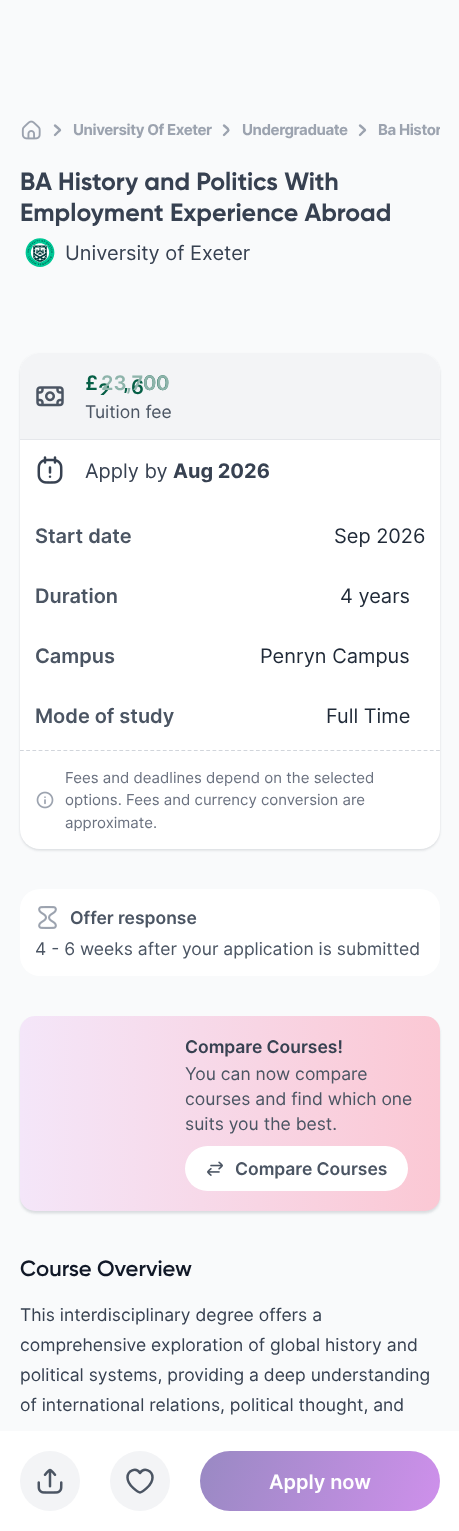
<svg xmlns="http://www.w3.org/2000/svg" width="459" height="1531">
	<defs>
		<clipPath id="clip1"><rect x="20" y="115" width="420" height="30" /></clipPath>
		<clipPath id="clip2"><rect x="99" y="370" width="12" height="25" /></clipPath>
		<clipPath id="clip3"><rect x="124" y="368" width="7" height="25" /></clipPath>
		<linearGradient id="g1" gradientUnits="userSpaceOnUse" x1="20" y1="1114" x2="440" y2="1114"><stop offset="0" stop-color="#F4E6F9" /><stop offset="1" stop-color="#FBC8D4" /></linearGradient>
		<linearGradient id="g2" gradientUnits="userSpaceOnUse" x1="203" y1="1443" x2="437" y2="1519"><stop offset="0" stop-color="#9989C3" /><stop offset="1" stop-color="#CE90EB" /></linearGradient>
	</defs>
	<rect width="100%" height="100%" fill="#F9FAFB" />
	<image x="21" y="120" width="20" height="20" href="assets/img1.png" />
	<path d="M55 125.5L58.5 128.5C60.5 130.5 60.5 130 58.5 131.5L55 135" fill="none" stroke="#9CA3AF" stroke-width="2.4" stroke-linecap="round" stroke-linejoin="round" />
	<text x="73" y="135" font-family="Inter" font-size="15" font-weight="700" letter-spacing="-0.4" fill="#9CA3AF">University Of Exeter</text>
	<path d="M224 125.5L227.5 128.5C229 130.5 229 130 227.5 131.5L224 135" fill="none" stroke="#9CA3AF" stroke-width="2.4" stroke-linecap="round" stroke-linejoin="round" />
	<text x="242" y="135" font-family="Inter" font-size="15" font-weight="700" letter-spacing="-0.4" fill="#9CA3AF">Undergraduate</text>
	<path d="M360 125.5L363.5 128.5C365.5 130.5 365.5 130 363.5 131.5L360 135" fill="none" stroke="#9CA3AF" stroke-width="2.4" stroke-linecap="round" stroke-linejoin="round" />
	<g clip-path="url(#clip1)">
		<text x="378" y="135" font-family="Inter" font-size="15" font-weight="700" letter-spacing="-0.4" fill="#9CA3AF">Ba Histor</text>
	</g>
	<g font-family="Gilroy" font-size="25" font-weight="700" fill="#374151">
		<text x="20" y="190">BA History and Politics With</text>
		<text x="20" y="221">Employment Experience Abroad</text>
	</g>
	<image x="25" y="238" width="30" height="29" href="assets/img2.png" />
	<text x="65" y="260" font-family="Inter" font-size="20" fill="#374151">University of Exeter</text>
	<rect x="20" y="355" width="420" height="496" rx="20" fill="#4B5563" fill-opacity="0.08" filter="blur(1px)" />
	<rect x="20" y="354" width="420" height="496" rx="20" fill="#4B5563" fill-opacity="0.1" filter="blur(1px)" />
	<rect x="20" y="353" width="420" height="496" rx="20" fill="#FFFFFF" />
	<path d="M40 353H420C431 353 440 362 440 373V439H20V373C20 362 29 353 40 353Z" fill="#F3F4F6" />
	<rect x="20" y="439" width="420" height="1" fill="#E5E7EB" />
	<image x="36" y="386" width="28" height="21" href="assets/img3.png" />
	<text x="85" y="390" font-family="Inter" font-size="20" font-weight="600" fill="#065F46">£</text>
	<g clip-path="url(#clip2)">
		<text x="98" y="398" font-family="Inter" font-size="20" font-weight="600" fill="#065F46">2</text>
	</g>
	<g clip-path="url(#clip3)">
		<text x="123" y="390" font-family="Inter" font-size="20" font-weight="600" fill="#065F46">,</text>
	</g>
	<g font-family="Inter" font-size="20" font-weight="600" fill="#065F46">
		<text x="131" y="394">6</text>
		<text x="143" y="390">0</text>
		<text x="156" y="390">0</text>
	</g>
	<text x="101" y="390" font-family="Inter" font-size="20" font-weight="600" fill="#8EB4AB">23,700</text>
	<text x="85" y="418" font-family="Inter" font-size="17.5" fill="#4B5563">Tuition fee</text>
	<image x="37" y="456" width="26" height="28" href="assets/img4.png" />
	<text x="85" y="478" font-family="Inter" font-size="20" fill="#374151">Apply by</text>
	<text x="173" y="478" font-family="Inter" font-size="20" font-weight="700" fill="#374151">Aug 2026</text>
	<text x="35" y="543" font-family="Inter" font-size="20" font-weight="600" fill="#4B5563">Start date</text>
	<text x="334" y="543" font-family="Inter" font-size="20" fill="#1F2937">Sep 2026</text>
	<text x="35" y="603" font-family="Inter" font-size="20" font-weight="600" fill="#4B5563">Duration</text>
	<text x="340" y="603" font-family="Inter" font-size="20" fill="#1F2937">4 years</text>
	<text x="35" y="663" font-family="Inter" font-size="20" font-weight="600" fill="#4B5563">Campus</text>
	<text x="260" y="663" font-family="Inter" font-size="20" fill="#1F2937">Penryn Campus</text>
	<text x="35" y="723" font-family="Inter" font-size="20" font-weight="600" fill="#4B5563">Mode of study</text>
	<text x="326" y="723" font-family="Inter" font-size="20" fill="#1F2937">Full Time</text>
	<path d="M20 750.5H440" fill="none" stroke="#D1D5DB" stroke-width="1.2" stroke-dasharray="3.75 2.46" />
	<image x="36" y="791" width="18" height="18" href="assets/img5.png" />
	<g font-family="Inter" font-size="15" fill="#6B7280">
		<text x="65" y="783">Fees and deadlines depend on the selected</text>
		<text x="65" y="805">options. Fees and currency conversion are</text>
		<text x="65" y="828">approximate.</text>
	</g>
	<rect x="20" y="889" width="420" height="87" rx="20" fill="#FFFFFF" />
	<image x="38" y="906" width="19" height="23" href="assets/img6.png" />
	<text x="70" y="924" font-family="Inter" font-size="17.5" font-weight="600" fill="#4B5563">Offer response</text>
	<text x="35" y="955" font-family="Inter" font-size="17.5" fill="#4B5563">4 - 6 weeks after your application is submitted</text>
	<rect x="20" y="1018" width="420" height="195" rx="15" fill="#4B5563" fill-opacity="0.1" filter="blur(1px)" />
	<rect x="20" y="1019" width="420" height="195" rx="15" fill="#4B5563" fill-opacity="0.08" filter="blur(1px)" />
	<rect x="20" y="1016" width="420" height="195" rx="15" fill="url(#g1)" />
	<text x="185" y="1053" font-family="Inter" font-size="17.5" font-weight="600" fill="#374151">Compare Courses!</text>
	<g font-family="Inter" font-size="17.5" fill="#4B5563">
		<text x="185" y="1080">You can now compare</text>
		<text x="185" y="1105">courses and find which one</text>
		<text x="185" y="1130">suits you the best.</text>
	</g>
	<rect x="185" y="1146" width="223" height="45" rx="22.5" fill="#FFFFFF" />
	<image x="207" y="1161" width="16" height="15" href="assets/img7.png" />
	<text x="235" y="1175" font-family="Inter" font-size="17.5" font-weight="600" fill="#4B5563">Compare Courses</text>
	<text x="20" y="1276" font-family="Gilroy" font-size="22" font-weight="600" fill="#111827">Course Overview</text>
	<g font-family="Inter" font-size="17.5" fill="#374151">
		<text x="20" y="1321">This interdisciplinary degree offers a</text>
		<text x="20" y="1351">comprehensive exploration of global history and</text>
		<text x="20" y="1381">political systems, providing a deep understanding</text>
		<text x="20" y="1411">of international relations, political thought, and</text>
	</g>
	<rect x="0" y="1431" width="459" height="100" fill="#FFFFFF" />
	<circle cx="50" cy="1481" r="30" fill="#F3F4F6" />
	<image x="37" y="1468" width="26" height="26" href="assets/img8.png" />
	<circle cx="140" cy="1481" r="30" fill="#F3F4F6" />
	<path d="M140 1492.5C141 1492.5 152.5 1486 152.5 1477.5C152.5 1470.5 144 1467 140 1473C136 1467 127.5 1470.5 127.5 1477.5C127.5 1486 139 1492.5 140 1492.5Z" fill="none" stroke="#4B5563" stroke-width="2.5" stroke-linecap="round" stroke-linejoin="round" />
	<rect x="200" y="1451" width="240" height="60" rx="30" fill="url(#g2)" />
	<text x="269" y="1489" font-family="Inter" font-size="20" font-weight="600" fill="#FFFFFF">Apply now</text>
</svg>
